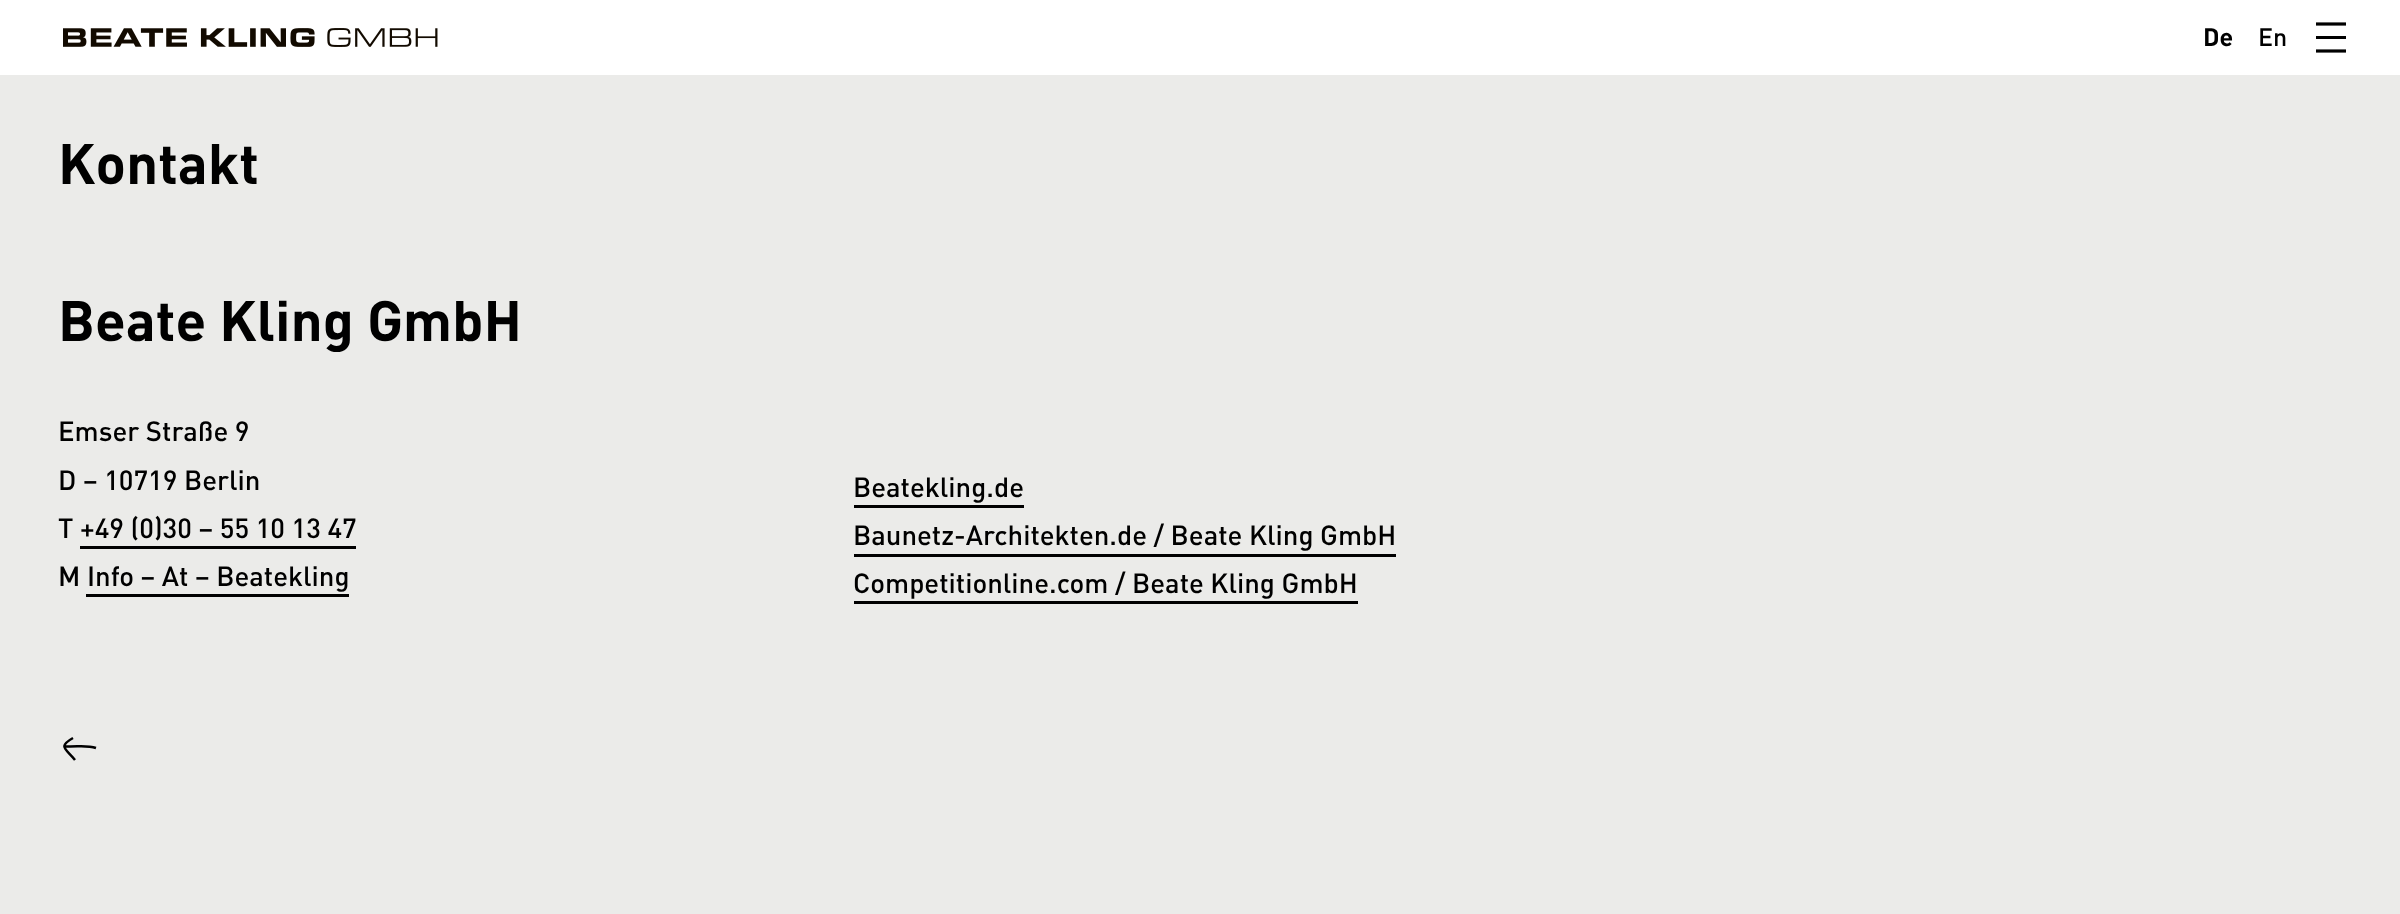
<svg xmlns="http://www.w3.org/2000/svg" width="2400" height="914">
	<rect width="100%" height="100%" fill="#EBEBE9" />
	<rect x="0" y="0" width="2400" height="75" fill="#FFFFFF" />
	<image x="63" y="28" width="375" height="19" href="assets/img1.png" />
	<text x="2203" y="46" font-family="DIN" font-size="25" font-weight="700" fill="#000000">De</text>
	<text x="2258" y="46" font-family="DIN" font-size="25" font-weight="500" fill="#000000">En</text>
	<path d="M2316 24H2346" fill="none" stroke="#000000" stroke-width="3.2" />
	<rect x="2316" y="36" width="30" height="3" fill="#000000" />
	<path d="M2316 51H2346" fill="none" stroke="#000000" stroke-width="3.2" />
	<g font-family="DIN" font-size="56.25" font-weight="700" fill="#000000">
		<text x="58" y="184">Kontakt</text>
		<text x="58" y="341">Beate Kling GmbH</text>
	</g>
	<g font-family="DIN" font-size="27.5" font-weight="500" fill="#000000">
		<text x="58" y="441">Emser Straße 9</text>
		<text x="58" y="490">D – 10719 Berlin</text>
		<text x="58" y="538">T +49 (0)30 – 55 10 13 47</text>
	</g>
	<rect x="80" y="546" width="276" height="3" fill="#000000" />
	<text x="58" y="586" font-family="DIN" font-size="27.5" font-weight="500" fill="#000000">M Info – At – Beatekling</text>
	<rect x="86" y="594" width="263" height="3" fill="#000000" />
	<text x="853" y="497" font-family="DIN" font-size="27.5" font-weight="500" fill="#000000">Beatekling.de</text>
	<rect x="854" y="505" width="170" height="3" fill="#000000" />
	<text x="853" y="545" font-family="DIN" font-size="27.5" font-weight="500" fill="#000000">Baunetz-Architekten.de / Beate Kling GmbH</text>
	<rect x="854" y="554" width="542" height="3" fill="#000000" />
	<text x="853" y="593" font-family="DIN" font-size="27.5" font-weight="500" fill="#000000">Competitionline.com / Beate Kling GmbH</text>
	<rect x="854" y="601" width="504" height="3" fill="#000000" />
	<path d="M96 748C87.5 745 83 746.5 64 746.5M73 738C57 747 66.5 749 75 760" fill="none" stroke="#000000" stroke-width="2.5" />
</svg>
